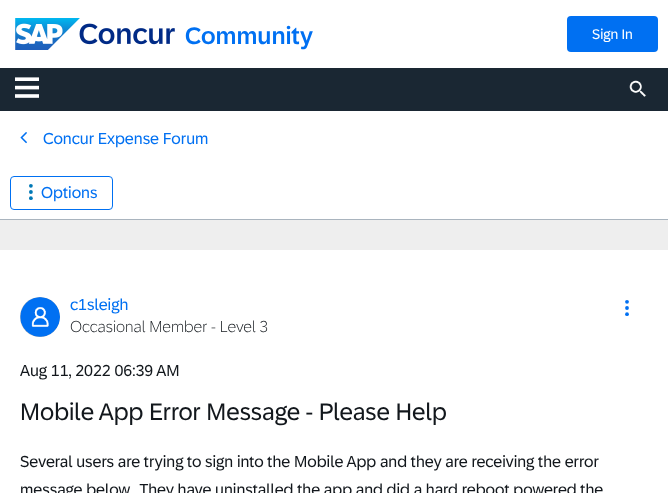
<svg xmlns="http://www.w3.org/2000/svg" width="668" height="493">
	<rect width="100%" height="100%" fill="#EEEEEE" />
	<rect x="0" y="0" width="668" height="68" fill="#FFFFFF" />
	<image x="15" y="18" width="160" height="32" href="assets/img1.png" />
	<text x="185" y="44" font-family="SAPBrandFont" font-size="24" font-weight="500" fill="#0070F2">Community</text>
	<rect x="567" y="16" width="91" height="36" rx="4" fill="#0070F2" />
	<text x="592" y="39" font-family="SAPBrandFont" font-size="14" fill="#FFFFFF">Sign In</text>
	<rect x="0" y="68" width="668" height="43" fill="#1A2733" />
	<image x="15" y="77" width="24" height="21" href="assets/img2.png" />
	<image x="629" y="80" width="18" height="17" href="assets/img3.png" />
	<rect x="0" y="111" width="668" height="108" fill="#FFFFFF" />
	<rect x="0" y="219" width="668" height="1" fill="#A9B4BE" />
	<image x="20" y="132" width="7" height="12" href="assets/img4.png" />
	<text x="43" y="144" font-family="SAPBrandFont" font-size="16" fill="#0070F2">Concur Expense Forum</text>
	<rect x="10.5" y="176.5" width="102" height="33" rx="3.5" fill="none" stroke="#0070F2" />
	<circle cx="30.9" cy="185.8" r="1.9" fill="#0078B6" />
	<circle cx="30.9" cy="192" r="1.9" fill="#0078B6" />
	<circle cx="30.9" cy="198.2" r="1.9" fill="#0078B6" />
	<text x="41" y="198" font-family="SAPBrandFont" font-size="16" fill="#0070F2">Options</text>
	<rect x="0" y="250" width="668" height="243" fill="#FFFFFF" />
	<rect x="20" y="297" width="40" height="40" rx="20" fill="#A9B4BE" filter="blur(0.5px)" />
	<image x="20" y="297" width="40" height="40" href="assets/img5.png" />
	<text x="70" y="310" font-family="SAPBrandFont" font-size="16" fill="#0070F2">c1sleigh</text>
	<text x="70" y="332" font-family="SAPBrandFont" font-size="16" font-weight="300" fill="#12171C">Occasional Member - Level 3</text>
	<circle cx="627" cy="301.8" r="1.9" fill="#0070F2" />
	<circle cx="627" cy="308" r="1.9" fill="#0070F2" />
	<circle cx="627" cy="314.2" r="1.9" fill="#0070F2" />
	<text x="20" y="376" font-family="SAPBrandFont" font-size="16" fill="#12171C">Aug 11, 2022 06:39 AM</text>
	<text x="20" y="420" font-family="SAPBrandFont" font-size="24" fill="#12171C">Mobile App Error Message - Please Help</text>
	<g font-family="SAPBrandFont" font-size="16" fill="#12171C">
		<text x="20" y="467">Several users are trying to sign into the Mobile App and they are receiving the error</text>
		<text x="20" y="495" xml:space="preserve">message below.  They have uninstalled the app and did a hard reboot powered the</text>
	</g>
</svg>
